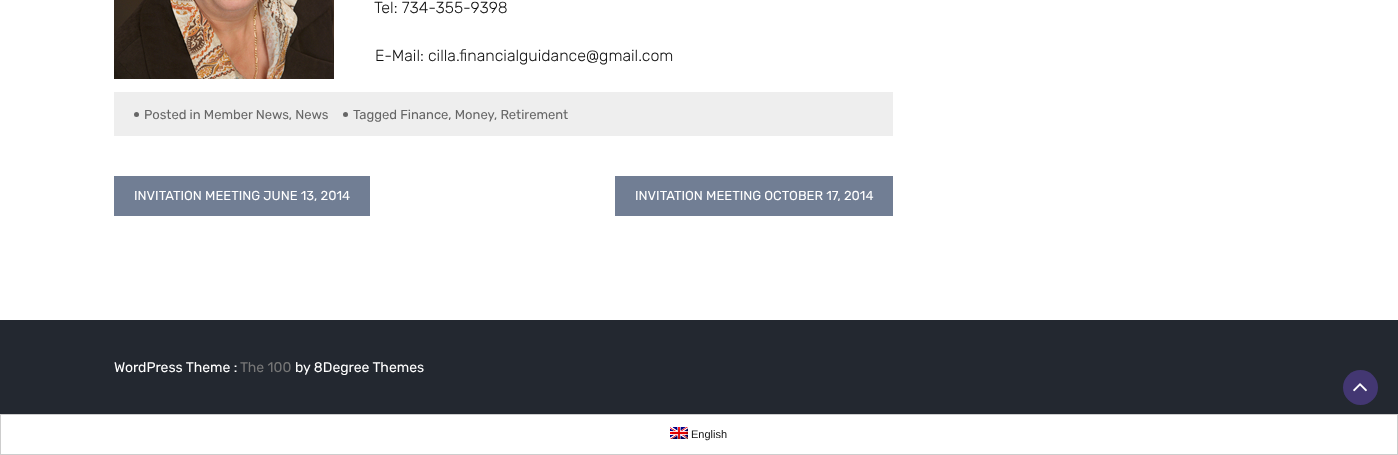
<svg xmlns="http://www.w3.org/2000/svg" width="1398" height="455">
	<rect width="100%" height="100%" fill="#FFFFFF" />
	<image x="114" y="0" width="220" height="79" href="assets/img1.png" />
	<g font-family="Rubik" font-size="16" font-weight="300" fill="#111111">
		<text x="374" y="13">Tel: 734-355-9398</text>
		<text x="375" y="61">E-Mail: cilla.financialguidance@gmail.com</text>
	</g>
	<rect x="114" y="92" width="779" height="44" fill="#EEEEEE" />
	<circle cx="136.5" cy="114.5" r="2.5" fill="#666666" />
	<text x="144" y="119" font-family="Rubik" font-size="13" fill="#666666">Posted in Member News, News</text>
	<circle cx="345.5" cy="114.5" r="2.5" fill="#666666" />
	<g font-family="Rubik" font-size="13" fill="#666666">
		<text x="353" y="119">Tagged Finance, Money</text>
		<text x="494" y="119">, Retirement</text>
	</g>
	<rect x="114" y="176" width="256" height="40" fill="#717E94" />
	<text x="134" y="200" font-family="Rubik" font-size="13" fill="#FFFFFF">INVITATION MEETING JUNE 13, 2014</text>
	<rect x="615" y="176" width="278" height="40" fill="#717E94" />
	<text x="635" y="200" font-family="Rubik" font-size="13" fill="#FFFFFF">INVITATION MEETING OCTOBER 17, 2014</text>
	<rect x="0" y="320" width="1398" height="94" fill="#232830" />
	<text x="114" y="372" font-family="Rubik" font-size="14" fill="#FFFFFF">WordPress Theme :</text>
	<text x="240" y="372" font-family="Rubik" font-size="14" fill="#777777">The 100</text>
	<text x="295" y="372" font-family="Rubik" font-size="14" fill="#FFFFFF">by 8Degree Themes</text>
	<circle cx="1360.5" cy="387.5" r="17.5" fill="#433772" />
	<image x="1353" y="383" width="14" height="9" href="assets/img2.png" />
	<rect x="0.5" y="414.5" width="1397" height="40" fill="none" stroke="#CDCDCD" />
	<image x="670" y="427" width="18" height="12" href="assets/img3.png" />
	<text x="691" y="438" font-family="Liberation Sans" font-size="11" fill="#111111">English</text>
</svg>
